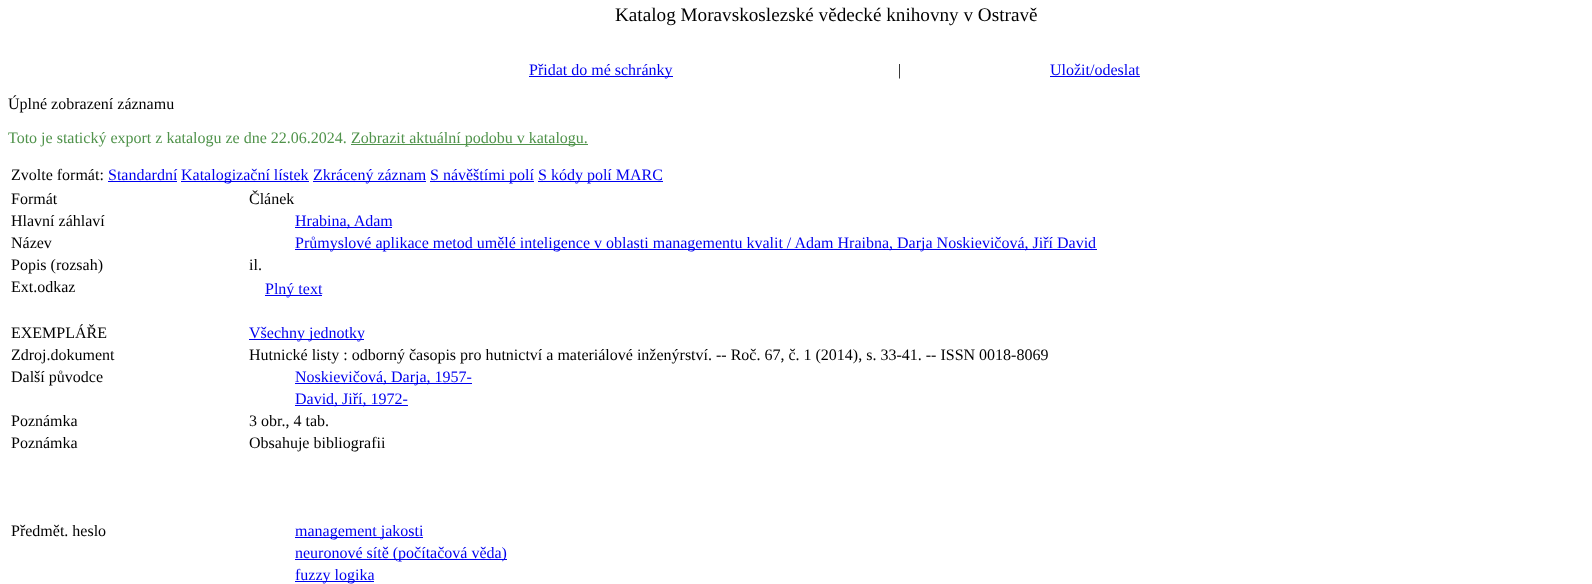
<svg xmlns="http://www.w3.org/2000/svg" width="1592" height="584">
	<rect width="100%" height="100%" fill="#FFFFFF" />
	<text x="615" y="21" font-family="Liberation Serif" font-size="19.2" fill="#000000">Katalog Moravskoslezské vědecké knihovny v Ostravě</text>
	<rect x="529" y="76" width="144" height="1" fill="#0000EE" />
	<text x="529" y="75" font-family="Liberation Serif" font-size="16" fill="#0000EE">Přidat do mé schránky</text>
	<text x="898" y="75" font-family="Liberation Serif" font-size="16" fill="#000000">|</text>
	<text x="1050" y="75" font-family="Liberation Serif" font-size="16" fill="#0000EE">Uložit/odeslat</text>
	<rect x="1050" y="76" width="90" height="1" fill="#0000EE" />
	<text x="8" y="109" font-family="Liberation Serif" font-size="16" fill="#000000">Úplné zobrazení záznamu</text>
	<text x="8" y="143" font-family="Liberation Serif" font-size="16" fill="#50934B">Toto je statický export z katalogu ze dne 22.06.2024.</text>
	<rect x="351" y="144" width="237" height="1" fill="#50934B" />
	<text x="351" y="143" font-family="Liberation Serif" font-size="16" fill="#50934B">Zobrazit aktuální podobu v katalogu.</text>
	<text x="11" y="180" font-family="Liberation Serif" font-size="16" fill="#000000">Zvolte formát:</text>
	<text x="108" y="180" font-family="Liberation Serif" font-size="16" fill="#0000EE">Standardní</text>
	<rect x="108" y="181" width="69" height="1" fill="#0000EE" />
	<rect x="181" y="181" width="128" height="1" fill="#0000EE" />
	<text x="181" y="180" font-family="Liberation Serif" font-size="16" fill="#0000EE">Katalogizační lístek</text>
	<rect x="313" y="181" width="113" height="1" fill="#0000EE" />
	<text x="313" y="180" font-family="Liberation Serif" font-size="16" fill="#0000EE">Zkrácený záznam</text>
	<rect x="430" y="181" width="104" height="1" fill="#0000EE" />
	<text x="430" y="180" font-family="Liberation Serif" font-size="16" fill="#0000EE">S návěštími polí</text>
	<rect x="538" y="181" width="125" height="1" fill="#0000EE" />
	<text x="538" y="180" font-family="Liberation Serif" font-size="16" fill="#0000EE">S kódy polí MARC</text>
	<g font-family="Liberation Serif" font-size="16" fill="#000000">
		<text x="11" y="204">Formát</text>
		<text x="249" y="204">Článek</text>
		<text x="11" y="226">Hlavní záhlaví</text>
	</g>
	<rect x="295" y="227" width="97" height="1" fill="#0000EE" />
	<text x="295" y="226" font-family="Liberation Serif" font-size="16" fill="#0000EE">Hrabina, Adam</text>
	<text x="11" y="248" font-family="Liberation Serif" font-size="16" fill="#000000">Název</text>
	<rect x="295" y="249" width="802" height="1" fill="#0000EE" />
	<text x="295" y="248" font-family="Liberation Serif" font-size="16" fill="#0000EE">Průmyslové aplikace metod umělé inteligence v oblasti managementu kvalit / Adam Hraibna, Darja Noskievičová, Jiří David</text>
	<g font-family="Liberation Serif" font-size="16" fill="#000000">
		<text x="11" y="270">Popis (rozsah)</text>
		<text x="249" y="270">il.</text>
		<text x="11" y="292">Ext.odkaz</text>
	</g>
	<rect x="265" y="295" width="57" height="1" fill="#0000EE" />
	<text x="265" y="294" font-family="Liberation Serif" font-size="16" fill="#0000EE">Plný text</text>
	<text x="11" y="338" font-family="Liberation Serif" font-size="16" fill="#000000">EXEMPLÁŘE</text>
	<rect x="249" y="339" width="115" height="1" fill="#0000EE" />
	<text x="249" y="338" font-family="Liberation Serif" font-size="16" fill="#0000EE">Všechny jednotky</text>
	<g font-family="Liberation Serif" font-size="16" fill="#000000">
		<text x="11" y="360">Zdroj.dokument</text>
		<text x="249" y="360">Hutnické listy : odborný časopis pro hutnictví a materiálové inženýrství. -- Roč. 67, č. 1 (2014), s. 33-41. -- ISSN 0018-8069</text>
		<text x="11" y="382">Další původce</text>
	</g>
	<rect x="295" y="383" width="177" height="1" fill="#0000EE" />
	<text x="295" y="382" font-family="Liberation Serif" font-size="16" fill="#0000EE">Noskievičová, Darja, 1957-</text>
	<rect x="295" y="405" width="113" height="1" fill="#0000EE" />
	<text x="295" y="404" font-family="Liberation Serif" font-size="16" fill="#0000EE">David, Jiří, 1972-</text>
	<g font-family="Liberation Serif" font-size="16" fill="#000000">
		<text x="11" y="426">Poznámka</text>
		<text x="249" y="426">3 obr., 4 tab.</text>
		<text x="11" y="448">Poznámka</text>
		<text x="249" y="448">Obsahuje bibliografii</text>
		<text x="11" y="536">Předmět. heslo</text>
	</g>
	<rect x="295" y="537" width="128" height="1" fill="#0000EE" />
	<text x="295" y="536" font-family="Liberation Serif" font-size="16" fill="#0000EE">management jakosti</text>
	<rect x="295" y="559" width="212" height="1" fill="#0000EE" />
	<text x="295" y="558" font-family="Liberation Serif" font-size="16" fill="#0000EE">neuronové sítě (počítačová věda)</text>
	<rect x="295" y="581" width="79" height="1" fill="#0000EE" />
	<text x="295" y="580" font-family="Liberation Serif" font-size="16" fill="#0000EE">fuzzy logika</text>
</svg>
